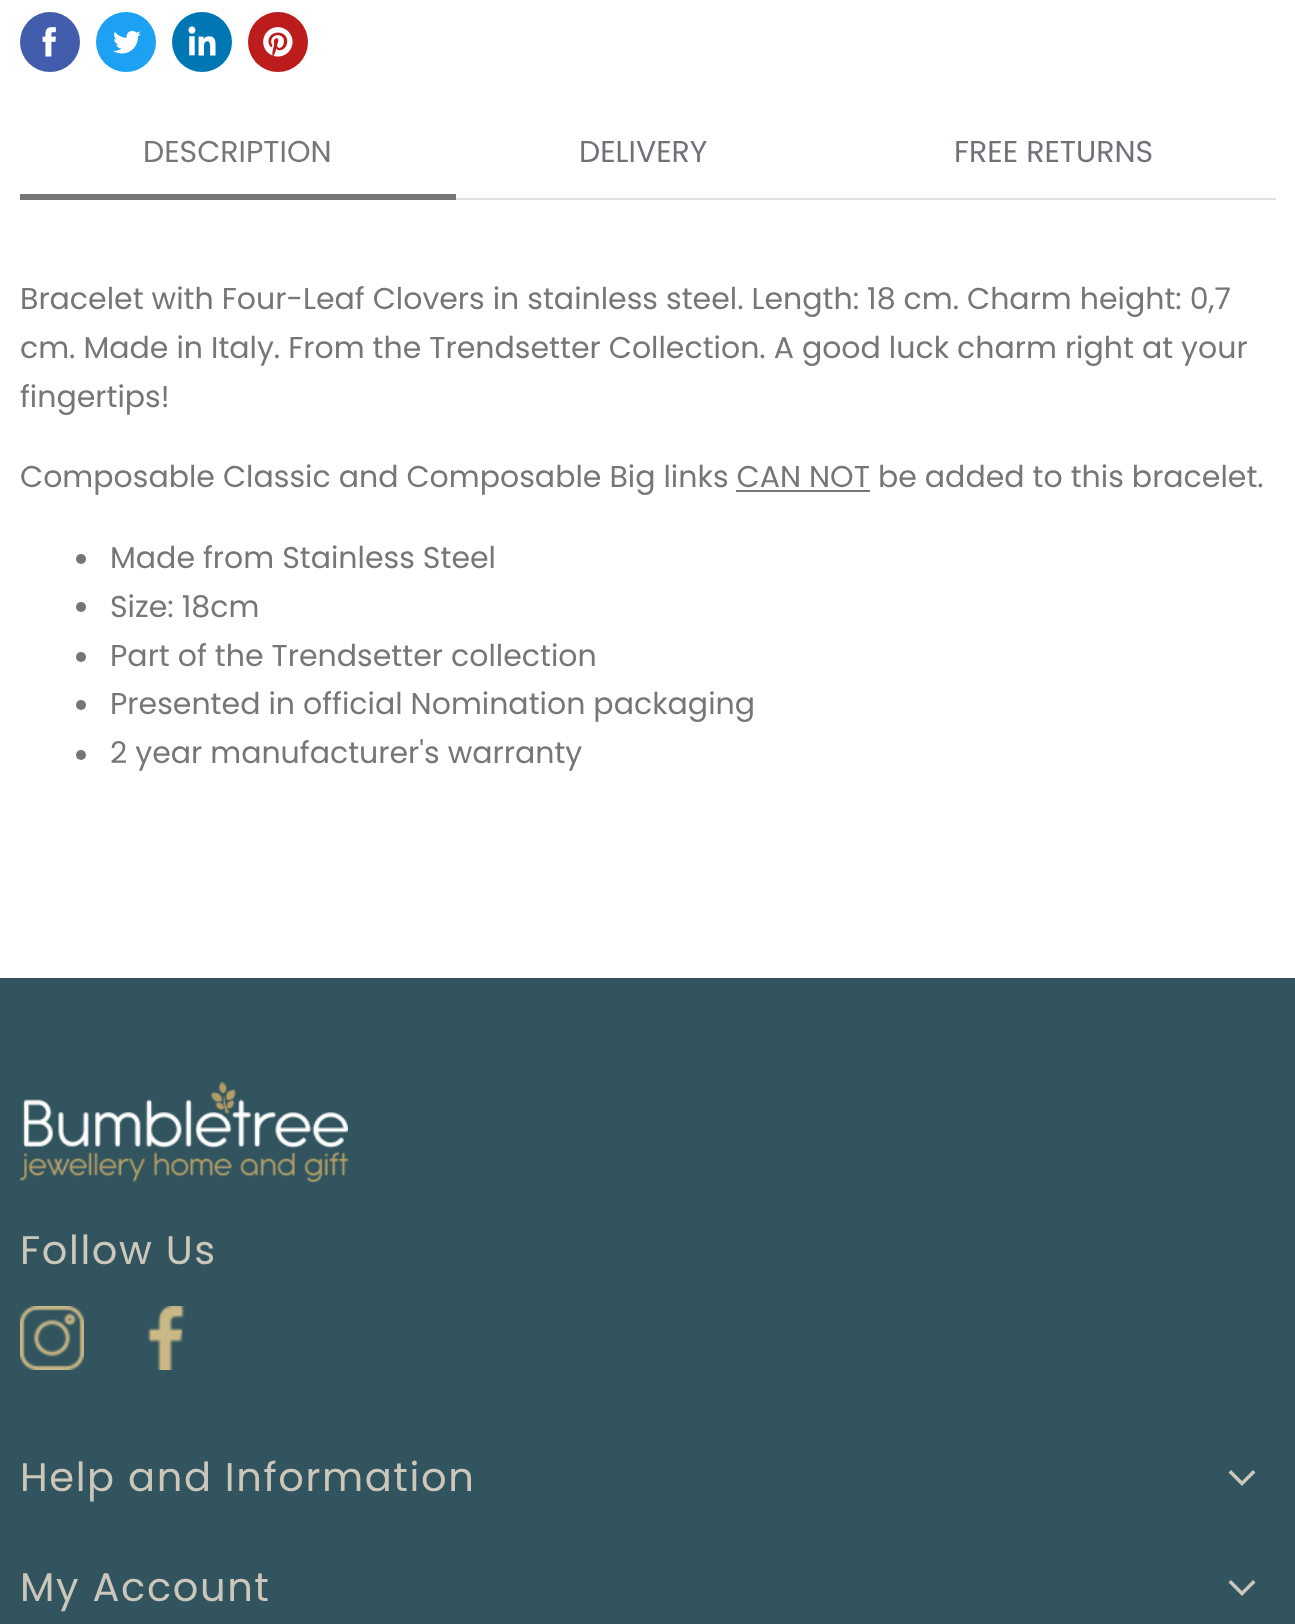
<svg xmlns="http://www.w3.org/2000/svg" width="1295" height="1624">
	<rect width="100%" height="100%" fill="#FFFFFF" />
	<circle cx="50" cy="42" r="30" fill="#425DAB" />
	<image x="42" y="27" width="14" height="30" href="assets/img1.png" />
	<circle cx="126" cy="42" r="30" fill="#1DA1F2" />
	<image x="113" y="30" width="28" height="24" href="assets/img2.png" />
	<circle cx="202" cy="42" r="30" fill="#0077B5" />
	<image x="188" y="26" width="28" height="30" href="assets/img3.png" />
	<circle cx="278" cy="42" r="30" fill="#BD1C1C" />
	<image x="263" y="27" width="30" height="30" href="assets/img4.png" />
	<rect x="20" y="194" width="436" height="6" fill="#777676" />
	<text x="143" y="162" font-family="Poppins" font-size="30" fill="#777676">DESCRIPTION</text>
	<g font-family="Poppins" font-size="30" fill="#71717A">
		<text x="579" y="162">DELIVERY</text>
		<text x="954" y="162">FREE RETURNS</text>
	</g>
	<rect x="456" y="198" width="820" height="2" fill="#E1E1E1" />
	<g font-family="Poppins" font-size="30" fill="#777676">
		<text x="20" y="309">Bracelet with Four-Leaf Clovers in stainless steel. Length: 18 cm. Charm height: 0,7</text>
		<text x="20" y="358">cm. Made in Italy. From the Trendsetter Collection. A good luck charm right at your</text>
		<text x="20" y="407">fingertips!</text>
		<text x="20" y="487">Composable Classic and Composable Big links CAN NOT be added to this bracelet.</text>
	</g>
	<rect x="736" y="490" width="134" height="2" fill="#777676" />
	<circle cx="81" cy="559" r="5" fill="#777676" />
	<text x="110" y="568" font-family="Poppins" font-size="30" fill="#777676">Made from Stainless Steel</text>
	<circle cx="81" cy="607" r="5" fill="#777676" />
	<text x="110" y="617" font-family="Poppins" font-size="30" fill="#777676">Size: 18cm</text>
	<circle cx="81" cy="657" r="5" fill="#777676" />
	<text x="110" y="666" font-family="Poppins" font-size="30" fill="#777676">Part of the Trendsetter collection</text>
	<circle cx="81" cy="705" r="5" fill="#777676" />
	<text x="110" y="714" font-family="Poppins" font-size="30" fill="#777676">Presented in official Nomination packaging</text>
	<circle cx="81" cy="755" r="5" fill="#777676" />
	<text x="110" y="763" font-family="Poppins" font-size="30" fill="#777676">2 year manufacturer's warranty</text>
	<rect x="0" y="978" width="1295" height="646" fill="#31545E" />
	<image x="20" y="1082" width="328" height="100" href="assets/img5.png" />
	<text x="20" y="1264" font-family="Poppins" font-size="40" letter-spacing="1.6" fill="#CCC7BB">Follow Us</text>
	<image x="20" y="1306" width="64" height="64" href="assets/img6.png" />
	<image x="147" y="1306" width="38" height="64" href="assets/img7.png" />
	<text x="20" y="1491" font-family="Poppins" font-size="40" letter-spacing="1.6" fill="#CCC7BB">Help and Information</text>
	<path d="M1242 1483.5L1253 1472.5M1242 1483.5L1231 1472.5" fill="none" stroke="#CCC7BB" stroke-width="3.5" stroke-linecap="square" />
	<text x="20" y="1601" font-family="Poppins" font-size="40" letter-spacing="1.6" fill="#CCC7BB">My Account</text>
	<path d="M1242 1593.5L1253 1582.5M1242 1593.5L1231 1582.5" fill="none" stroke="#CCC7BB" stroke-width="3.5" stroke-linecap="square" />
</svg>
